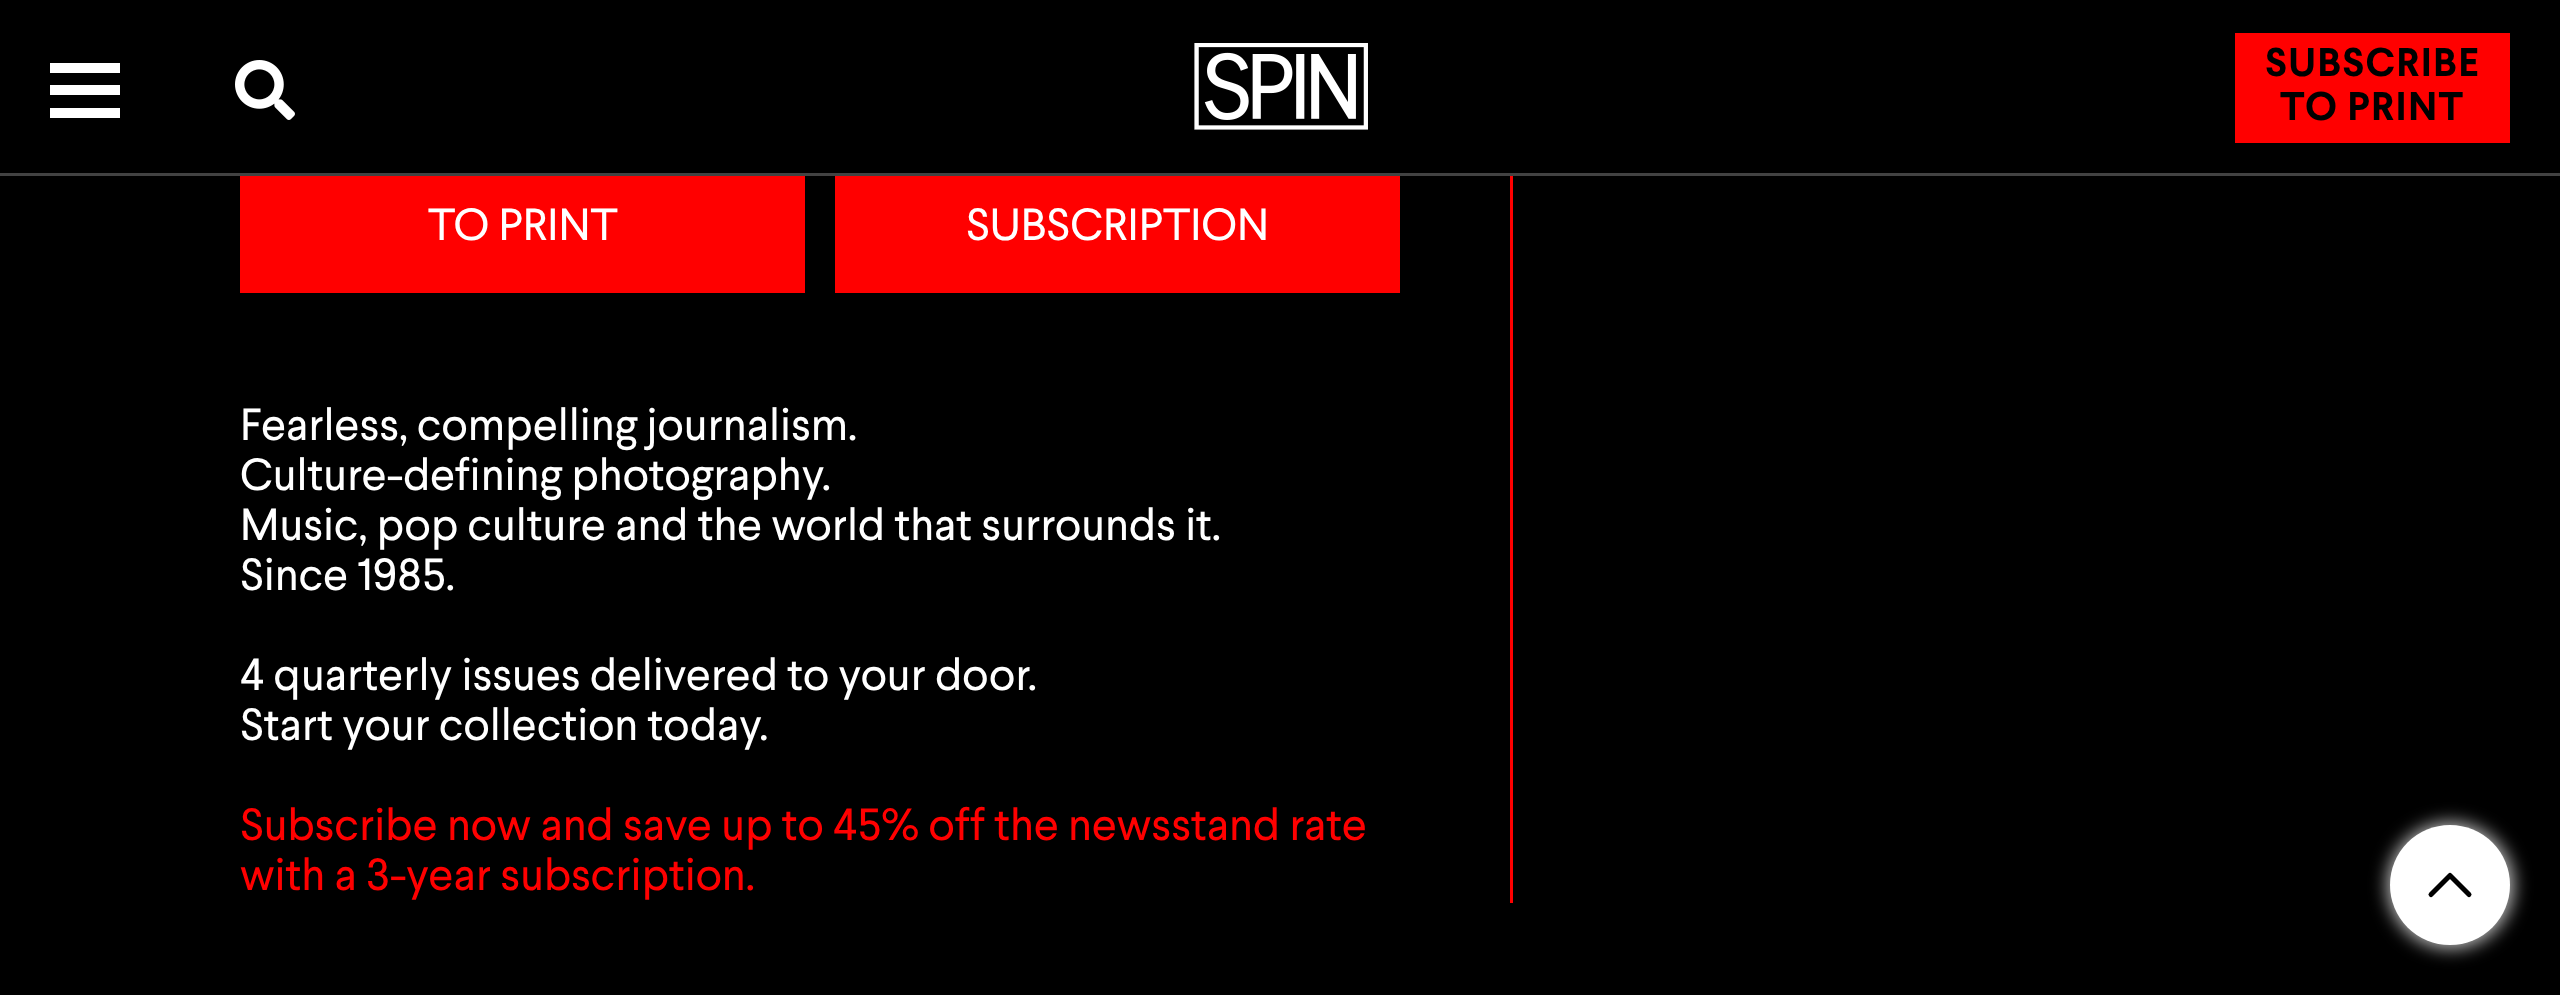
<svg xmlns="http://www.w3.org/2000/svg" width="2560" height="995">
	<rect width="100%" height="100%" fill="#000000" />
	<rect x="0" y="173" width="2560" height="3" fill="#424242" />
	<rect x="50" y="108" width="70" height="10" fill="#FFFFFF" />
	<rect x="50" y="63" width="70" height="10" fill="#FFFFFF" />
	<rect x="50" y="85" width="70" height="10" fill="#FFFFFF" />
	<image x="235" y="60" width="60" height="60" href="assets/img1.png" />
	<image x="1194" y="43" width="174" height="87" href="assets/img2.png" />
	<rect x="2235" y="33" width="275" height="110" fill="#FF0000" />
	<g font-family="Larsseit" font-size="40" font-weight="700" letter-spacing="1.25" fill="#000000">
		<text x="2265" y="76">SUBSCRIBE</text>
		<text x="2280" y="120">TO PRINT</text>
	</g>
	<rect x="1510" y="176" width="3" height="727" fill="#FF0000" />
	<rect x="240" y="176" width="565" height="117" fill="#FF0000" />
	<text x="428" y="240" font-family="Larsseit" font-size="45" fill="#FFFFFF">TO PRINT</text>
	<rect x="835" y="176" width="565" height="117" fill="#FF0000" />
	<g font-family="Larsseit" font-size="45" fill="#FFFFFF">
		<text x="966" y="240">SUBSCRIPTION</text>
		<text x="240" y="440">Fearless, compelling journalism.</text>
		<text x="240" y="490">Culture-defining photography.</text>
		<text x="240" y="540">Music, pop culture and the world that surrounds it.</text>
		<text x="240" y="590">Since 1985.</text>
		<text x="240" y="690">4 quarterly issues delivered to your door.</text>
		<text x="240" y="740">Start your collection today.</text>
	</g>
	<g font-family="Larsseit" font-size="45" fill="#FF0000">
		<text x="240" y="840">Subscribe now and save up to 45% off the newsstand rate</text>
		<text x="240" y="890">with a 3-year subscription.</text>
	</g>
	<rect x="2388" y="823" width="125" height="125" rx="62.5" fill="#C7C7C7" filter="blur(9px)" />
	<circle cx="2450" cy="885" r="60" fill="#FFFFFF" />
	<path d="M2431 894.5L2450 875.5L2469 894.5" fill="none" stroke="#000000" stroke-width="5" stroke-linecap="round" stroke-linejoin="round" />
</svg>
